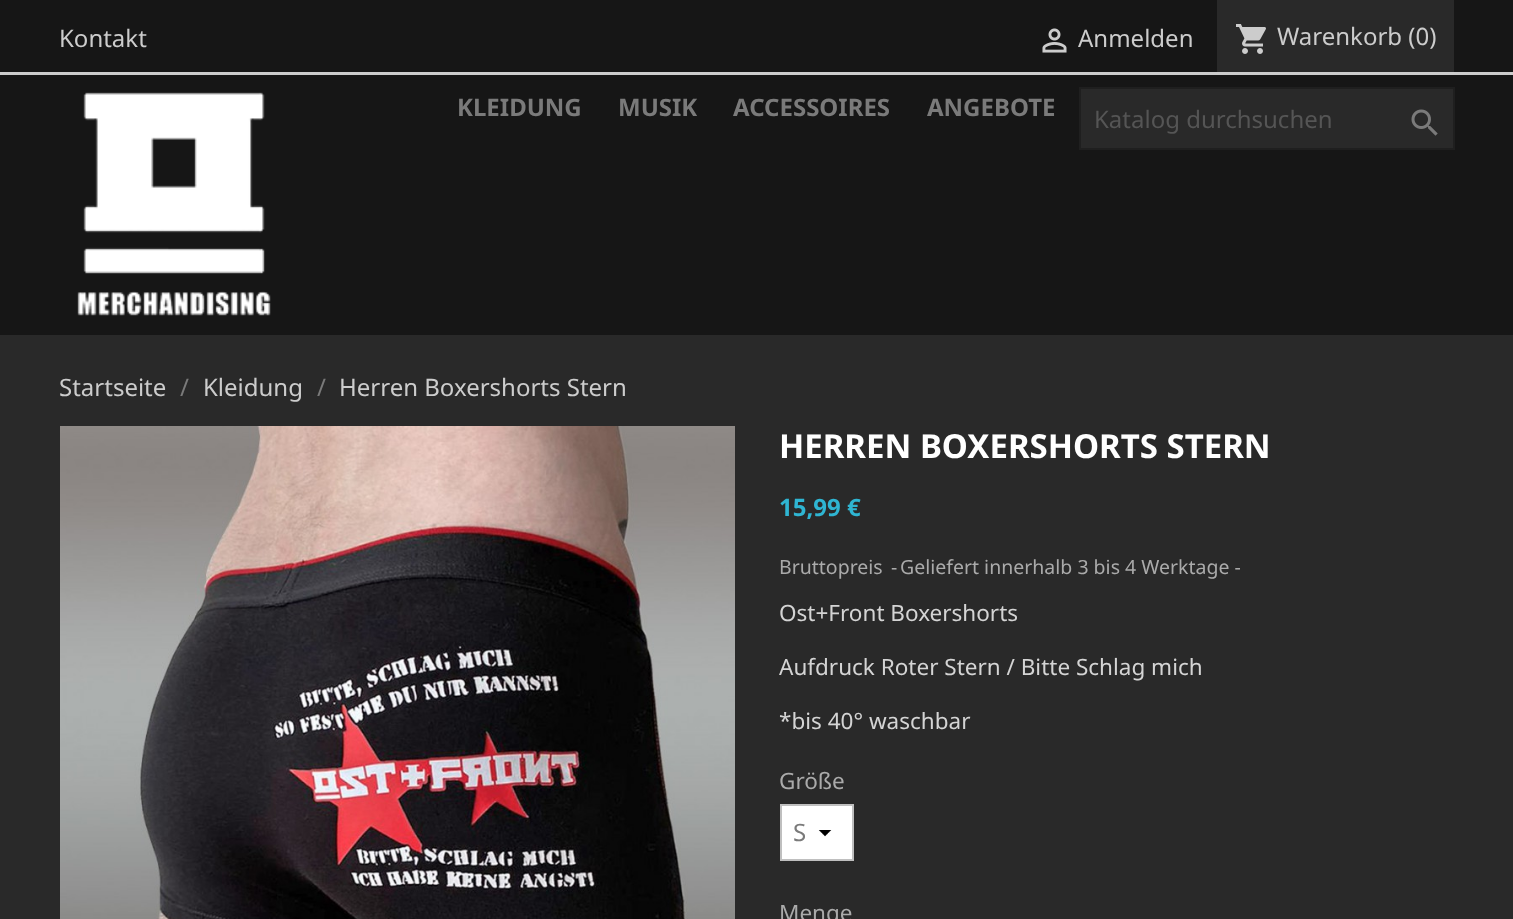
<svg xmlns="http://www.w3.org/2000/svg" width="1513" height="919">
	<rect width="100%" height="100%" fill="#161616" />
	<rect x="0" y="72" width="1513" height="3" fill="#CCCCCC" />
	<text x="59" y="47" font-family="Noto Sans" font-size="24" fill="#CCCCCC">Kontakt</text>
	<image x="1042" y="28" width="25" height="25" href="assets/img1.png" />
	<text x="1078" y="47" font-family="Noto Sans" font-size="24" fill="#CCCCCC">Anmelden</text>
	<rect x="1217" y="0" width="237" height="72" fill="#292929" />
	<image x="1236" y="24" width="30" height="30" href="assets/img2.png" />
	<text x="1277" y="45" font-family="Noto Sans" font-size="24" fill="#CCCCCC">Warenkorb (0)</text>
	<image x="77" y="92" width="194" height="224" href="assets/img3.png" />
	<g font-family="Noto Sans" font-size="24" font-weight="700" fill="#7A7A7A">
		<text x="457" y="116">KLEIDUNG</text>
		<text x="618" y="116">MUSIK</text>
		<text x="733" y="116">ACCESSOIRES</text>
		<text x="927" y="116">ANGEBOTE</text>
	</g>
	<rect x="1080" y="88" width="374" height="61" fill="#292929" stroke="#1F1F1F" stroke-width="2" />
	<text x="1094" y="128" font-family="Noto Sans" font-size="24" fill="#555555">Katalog durchsuchen</text>
	<image x="1411" y="109" width="27" height="27" href="assets/img4.png" />
	<rect x="0" y="335" width="1513" height="584" fill="#292929" />
	<text x="59" y="396" font-family="Noto Sans" font-size="24" fill="#CCCCCC">Startseite</text>
	<text x="180" y="396" font-family="Noto Sans" font-size="24" fill="#7A7A7A">/</text>
	<text x="203" y="396" font-family="Noto Sans" font-size="24" fill="#CCCCCC">Kleidung</text>
	<text x="317" y="396" font-family="Noto Sans" font-size="24" fill="#7A7A7A">/</text>
	<text x="339" y="396" font-family="Noto Sans" font-size="24" fill="#CCCCCC">Herren Boxershorts Stern</text>
	<image x="60" y="426" width="675" height="493" href="assets/img5.png" />
	<text x="779" y="458" font-family="Noto Sans" font-size="33" font-weight="700" fill="#FFFFFF">HERREN BOXERSHORTS STERN</text>
	<text x="779" y="516" font-family="Noto Sans" font-size="24" font-weight="700" fill="#2FB5D2">15,99 €</text>
	<g font-family="Noto Sans" font-size="19.5" fill="#AAAAAA">
		<text x="779" y="574">Bruttopreis</text>
		<text x="891" y="574">-</text>
		<text x="900" y="574">Geliefert innerhalb 3 bis 4 Werktage -</text>
	</g>
	<g font-family="Noto Sans" font-size="22.5" fill="#D4D4D4">
		<text x="779" y="621">Ost+Front Boxershorts</text>
		<text x="779" y="675">Aufdruck Roter Stern / Bitte Schlag mich</text>
		<text x="779" y="729">*bis 40° waschbar</text>
	</g>
	<text x="779" y="789" font-family="Noto Sans" font-size="22.5" fill="#AAAAAA">Größe</text>
	<rect x="782" y="806" width="70" height="53" fill="#FFFFFF" />
	<image x="818" y="830" width="14" height="7" href="assets/img6.png" />
	<rect x="781" y="805" width="72" height="55" fill="none" stroke="#BFBFBF" stroke-width="2" />
	<text x="793" y="841" font-family="Noto Sans" font-size="24" fill="#7A7A7A">S</text>
	<text x="779" y="921" font-family="Noto Sans" font-size="22.5" fill="#AAAAAA">Menge</text>
</svg>
